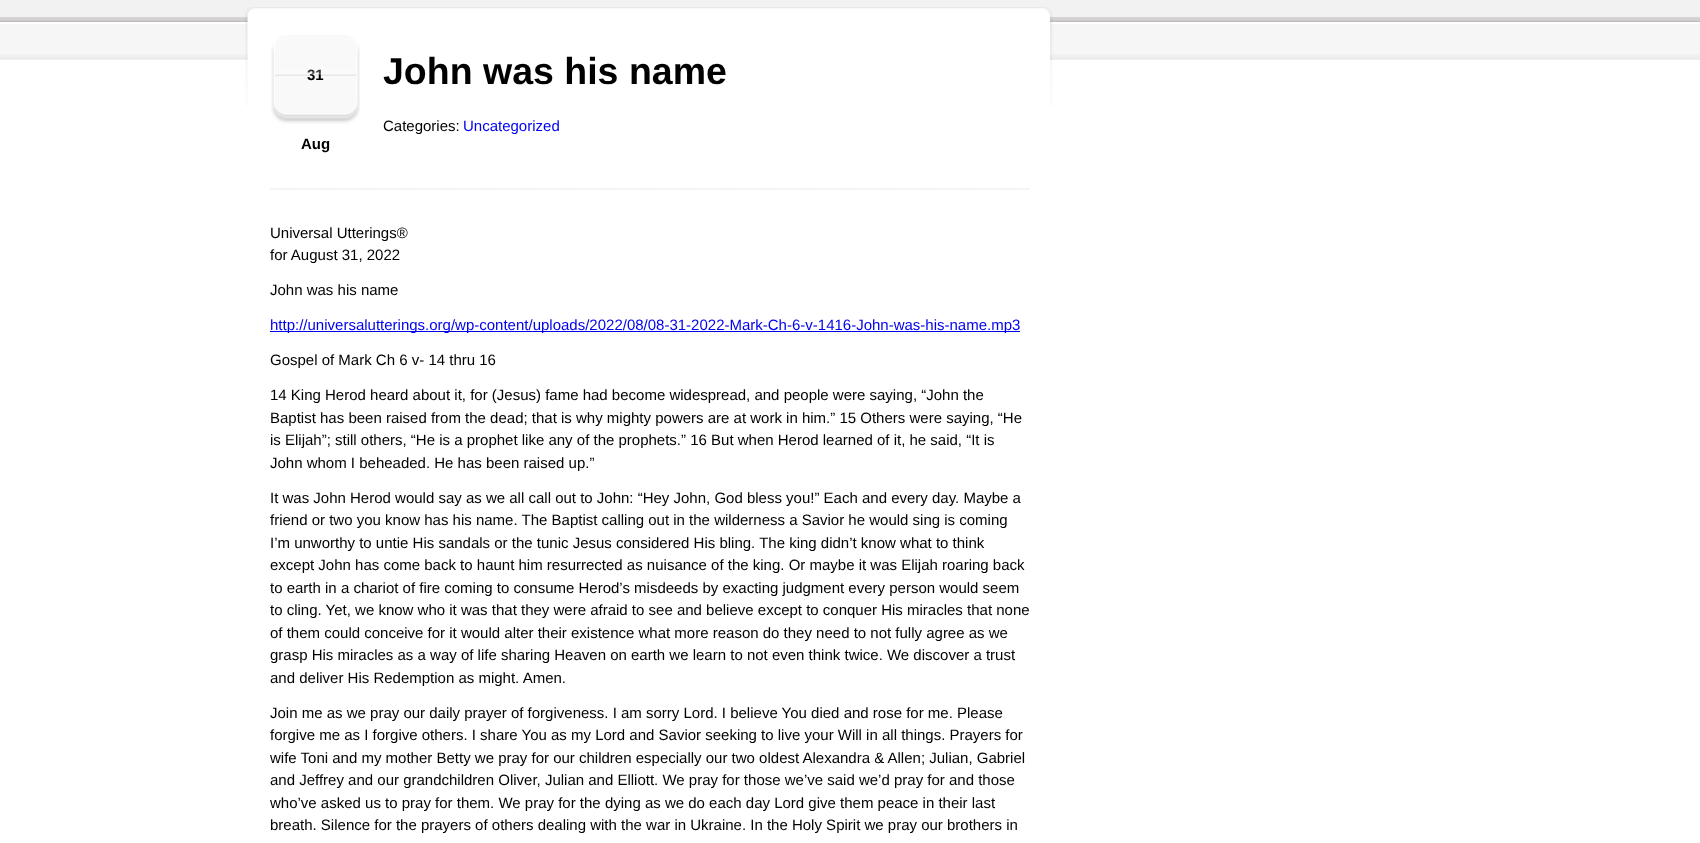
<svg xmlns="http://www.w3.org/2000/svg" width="1700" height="843">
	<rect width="100%" height="100%" fill="#FFFFFF" />
	<image x="0" y="0" width="1700" height="22" href="assets/img1.png" />
	<rect x="0" y="24" width="1700" height="36" fill="#F6F6F6" />
	<image x="0" y="54" width="1700" height="6" href="assets/img2.png" />
	<image x="245" y="7" width="808" height="99" href="assets/img3.png" />
	<image x="270" y="188" width="759" height="2" href="assets/img4.png" />
	<image x="271" y="35" width="89" height="89" href="assets/img5.png" />
	<text x="307" y="80" font-family="Liberation Sans" font-size="15" font-weight="700" fill="#000000">31</text>
	<image x="275" y="69" width="82" height="7" href="assets/img6.png" />
	<text x="301" y="149" font-family="Liberation Sans" font-size="15" font-weight="700" fill="#000000">Aug</text>
	<text x="383" y="84" font-family="Liberation Sans" font-size="37.5" font-weight="700" fill="#000000">John was his name</text>
	<text x="383" y="131" font-family="Liberation Sans" font-size="15" fill="#000000">Categories:</text>
	<text x="463" y="131" font-family="Liberation Sans" font-size="15" fill="#0000EE">Uncategorized</text>
	<g font-family="Liberation Sans" font-size="15" fill="#000000">
		<text x="270" y="238">Universal Utterings®</text>
		<text x="270" y="260">for August 31, 2022</text>
		<text x="270" y="295">John was his name</text>
	</g>
	<rect x="270" y="331" width="750" height="1" fill="#0000EE" />
	<text x="270" y="330" font-family="Liberation Sans" font-size="15" fill="#0000EE">http://universalutterings.org/wp-content/uploads/2022/08/08-31-2022-Mark-Ch-6-v-1416-John-was-his-name.mp3</text>
	<g font-family="Liberation Sans" font-size="15" fill="#000000">
		<text x="270" y="365">Gospel of Mark Ch 6 v- 14 thru 16</text>
		<text x="270" y="400">14 King Herod heard about it, for (Jesus) fame had become widespread, and people were saying, “John the</text>
		<text x="270" y="423">Baptist has been raised from the dead; that is why mighty powers are at work in him.” 15 Others were saying, “He</text>
		<text x="270" y="445">is Elijah”; still others, “He is a prophet like any of the prophets.” 16 But when Herod learned of it, he said, “It is</text>
		<text x="270" y="468">John whom I beheaded. He has been raised up.”</text>
		<text x="270" y="503">It was John Herod would say as we all call out to John: “Hey John, God bless you!” Each and every day. Maybe a</text>
		<text x="270" y="525">friend or two you know has his name. The Baptist calling out in the wilderness a Savior he would sing is coming</text>
		<text x="270" y="548">I’m unworthy to untie His sandals or the tunic Jesus considered His bling. The king didn’t know what to think</text>
		<text x="270" y="570">except John has come back to haunt him resurrected as nuisance of the king. Or maybe it was Elijah roaring back</text>
		<text x="270" y="593">to earth in a chariot of fire coming to consume Herod’s misdeeds by exacting judgment every person would seem</text>
		<text x="270" y="615">to cling. Yet, we know who it was that they were afraid to see and believe except to conquer His miracles that none</text>
		<text x="270" y="638">of them could conceive for it would alter their existence what more reason do they need to not fully agree as we</text>
		<text x="270" y="660">grasp His miracles as a way of life sharing Heaven on earth we learn to not even think twice. We discover a trust</text>
		<text x="270" y="683">and deliver His Redemption as might. Amen.</text>
		<text x="270" y="718">Join me as we pray our daily prayer of forgiveness. I am sorry Lord. I believe You died and rose for me. Please</text>
		<text x="270" y="740">forgive me as I forgive others. I share You as my Lord and Savior seeking to live your Will in all things. Prayers for</text>
		<text x="270" y="763">wife Toni and my mother Betty we pray for our children especially our two oldest Alexandra &amp; Allen; Julian, Gabriel</text>
		<text x="270" y="785">and Jeffrey and our grandchildren Oliver, Julian and Elliott. We pray for those we’ve said we’d pray for and those</text>
		<text x="270" y="808">who’ve asked us to pray for them. We pray for the dying as we do each day Lord give them peace in their last</text>
		<text x="270" y="830">breath. Silence for the prayers of others dealing with the war in Ukraine. In the Holy Spirit we pray our brothers in</text>
	</g>
</svg>
